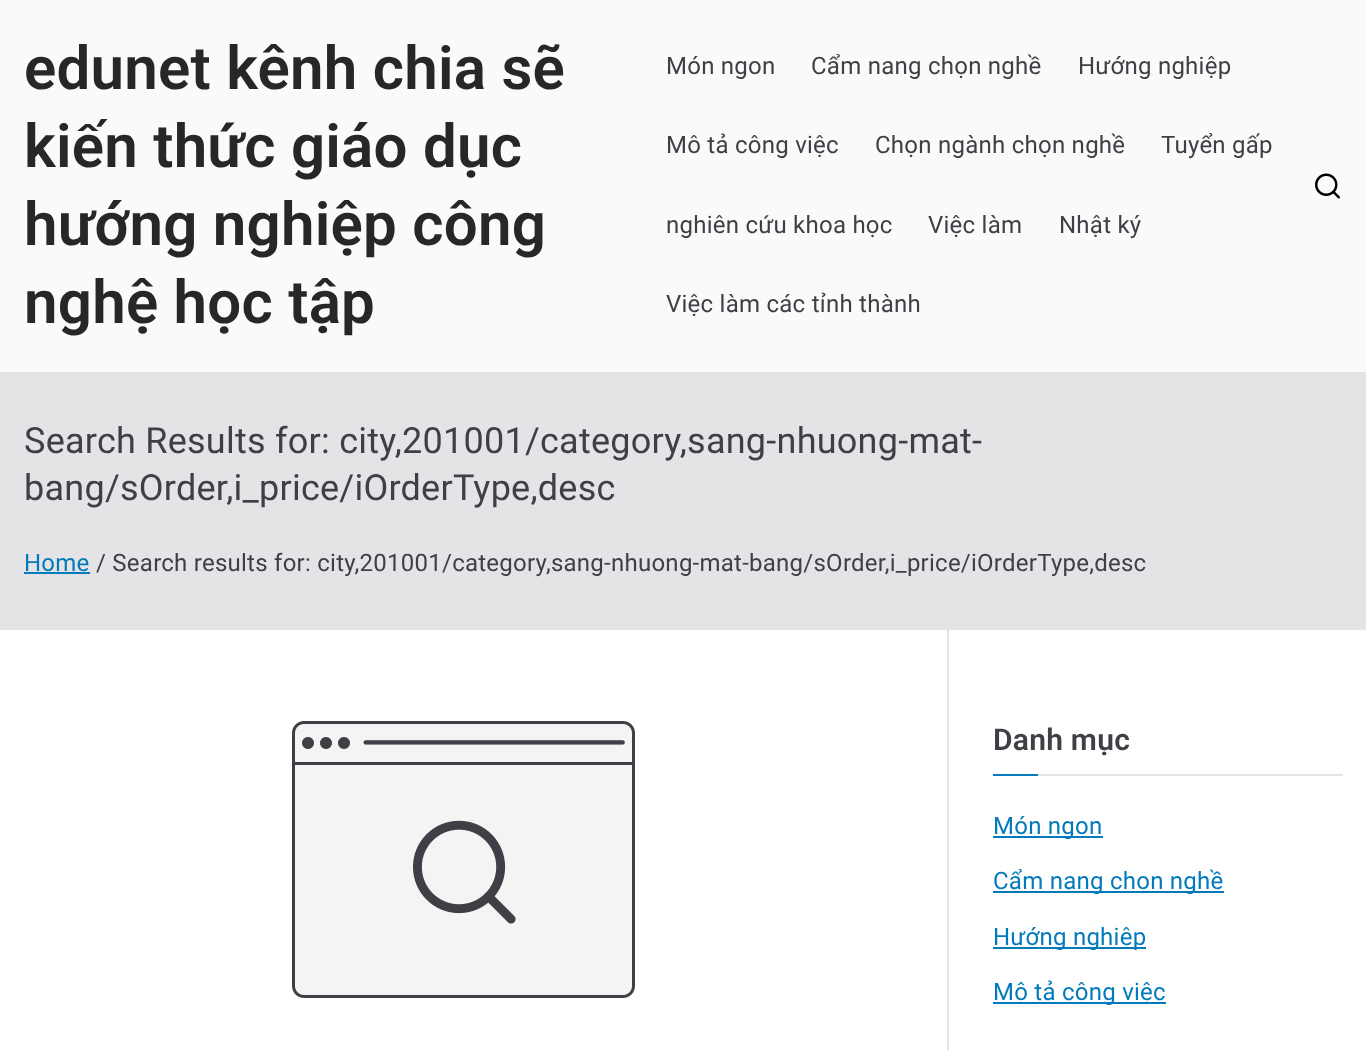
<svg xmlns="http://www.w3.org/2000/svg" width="1366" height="1050">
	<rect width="100%" height="100%" fill="#FAFAFA" />
	<rect x="0" y="372" width="1366" height="258" fill="#E4E4E7" />
	<g font-family="Roboto" font-size="60" font-weight="600" letter-spacing="0.25" fill="#27272A">
		<text x="24" y="89">edunet kênh chia sẽ</text>
		<text x="24" y="167">kiến thức giáo dục</text>
		<text x="24" y="245">hướng nghiệp công</text>
		<text x="24" y="323">nghệ học tập</text>
	</g>
	<g font-family="Roboto" font-size="24" letter-spacing="0.25" fill="#3F3F46">
		<text x="666" y="74">Món ngon</text>
		<text x="811" y="74">Cẩm nang chọn nghề</text>
		<text x="1078" y="74">Hướng nghiệp</text>
		<text x="666" y="153">Mô tả công việc</text>
		<text x="875" y="153">Chọn ngành chọn nghề</text>
		<text x="1161" y="153">Tuyển gấp</text>
		<text x="666" y="233">nghiên cứu khoa học</text>
		<text x="928" y="233">Việc làm</text>
		<text x="1059" y="233">Nhật ký</text>
		<text x="666" y="312">Việc làm các tỉnh thành</text>
	</g>
	<image x="1315" y="173" width="25" height="26" href="assets/img1.png" />
	<g font-family="Roboto" font-size="36" letter-spacing="0.25" fill="#3F3F46">
		<text x="24" y="453">Search Results for: city,201001/category,sang-nhuong-mat-</text>
		<text x="24" y="500">bang/sOrder,i_price/iOrderType,desc</text>
	</g>
	<text x="24" y="571" font-family="Roboto" font-size="24" letter-spacing="0.25" fill="#027ABB">Home</text>
	<rect x="24" y="572" width="66" height="2" fill="#027ABB" />
	<text x="96" y="571" font-family="Roboto" font-size="24" letter-spacing="0.25" fill="#3F3F46">/ Search results for: city,201001/category,sang-nhuong-mat-bang/sOrder,i_price/iOrderType,desc</text>
	<rect x="0" y="630" width="1366" height="420" fill="#FFFFFF" />
	<image x="292" y="721" width="343" height="277" href="assets/img2.png" />
	<rect x="947" y="630" width="2" height="420" fill="#E4E4E7" />
	<rect x="1038" y="774" width="305" height="2" fill="#E4E4E7" />
	<text x="993" y="750" font-family="Roboto" font-size="30" font-weight="600" letter-spacing="0.25" fill="#3F3F46">Danh mục</text>
	<rect x="993" y="774" width="45" height="2" fill="#027ABB" />
	<rect x="993" y="836" width="110" height="2" fill="#027ABB" />
	<text x="993" y="834" font-family="Roboto" font-size="24" letter-spacing="0.25" fill="#027ABB">Món ngon</text>
	<rect x="993" y="891" width="231" height="2" fill="#027ABB" />
	<text x="993" y="889" font-family="Roboto" font-size="24" letter-spacing="0.25" fill="#027ABB">Cẩm nang chọn nghề</text>
	<rect x="993" y="947" width="153" height="2" fill="#027ABB" />
	<text x="993" y="945" font-family="Roboto" font-size="24" letter-spacing="0.25" fill="#027ABB">Hướng nghiệp</text>
	<rect x="993" y="1002" width="173" height="2" fill="#027ABB" />
	<text x="993" y="1000" font-family="Roboto" font-size="24" letter-spacing="0.25" fill="#027ABB">Mô tả công việc</text>
</svg>
